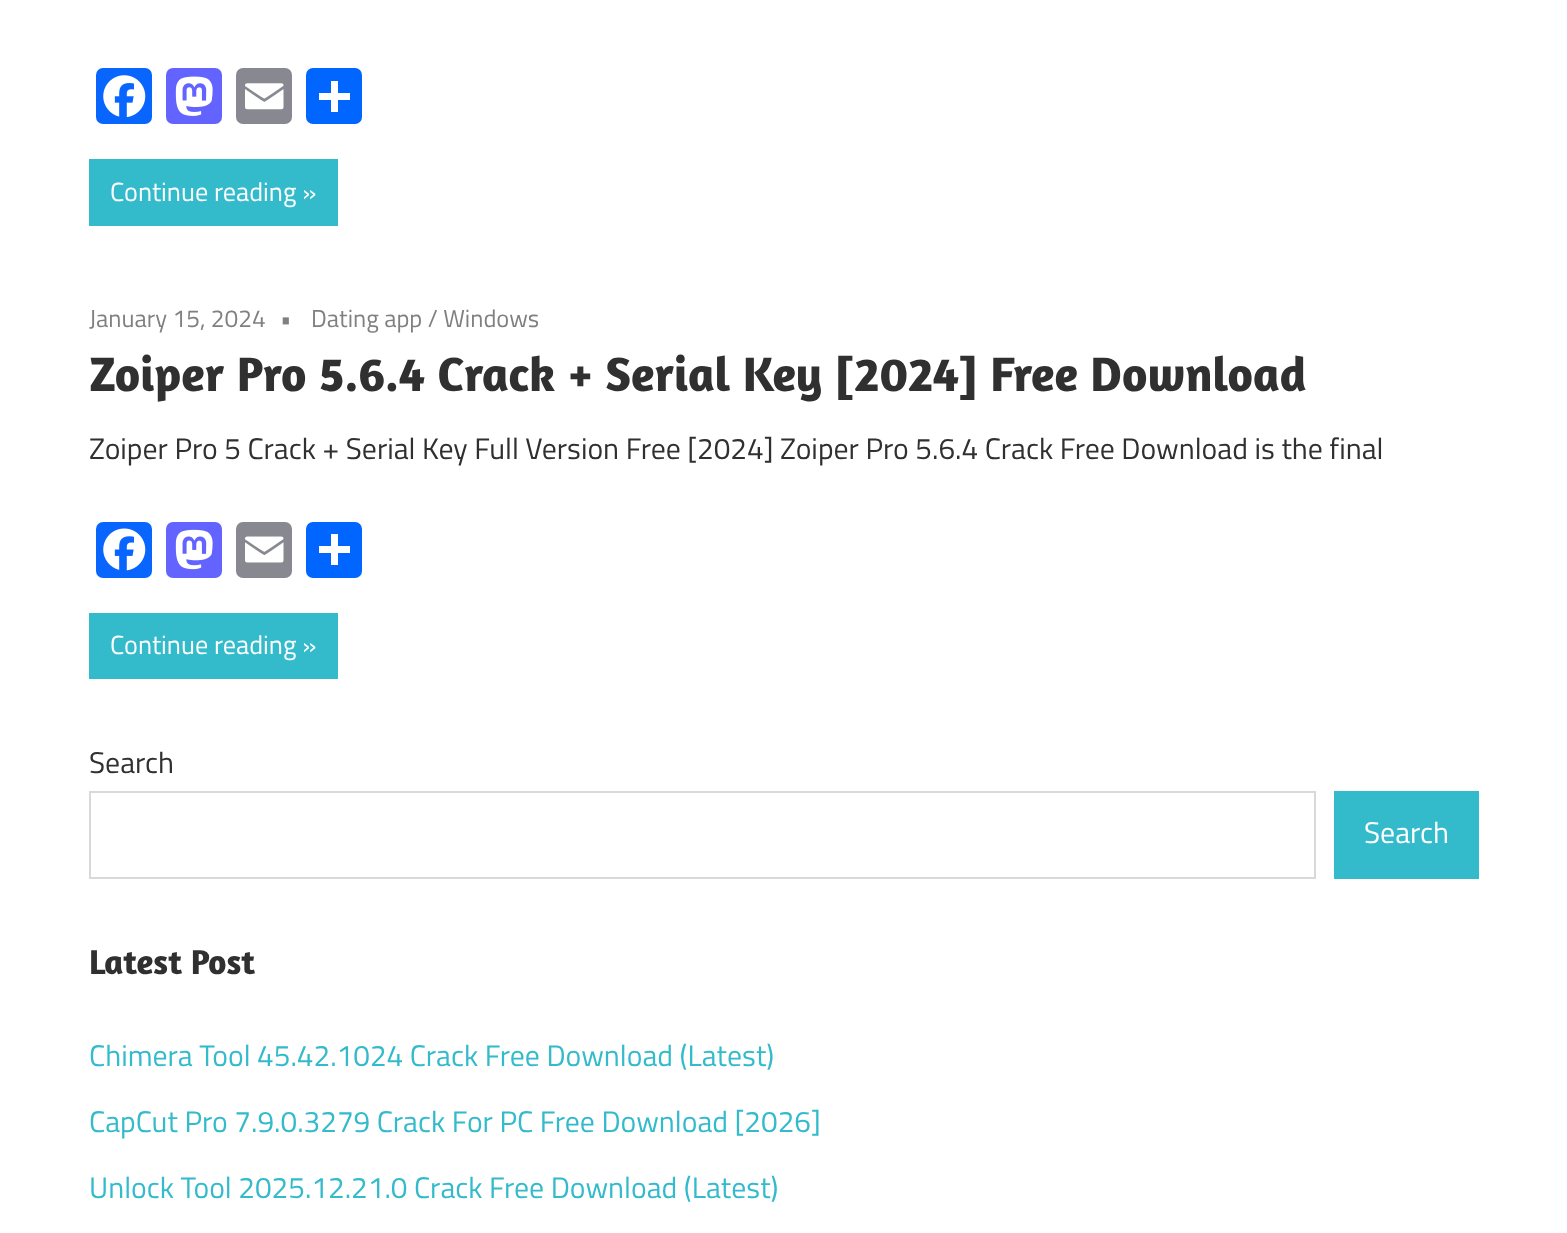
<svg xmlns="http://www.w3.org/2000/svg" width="1567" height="1233">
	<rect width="100%" height="100%" fill="#FFFFFF" />
	<rect x="96" y="68" width="56" height="56" rx="7" fill="#0866FF" />
	<image x="103" y="75" width="43" height="42" href="assets/img1.png" />
	<rect x="166" y="68" width="56" height="56" rx="7" fill="#6364FF" />
	<image x="175" y="76" width="38" height="40" href="assets/img2.png" />
	<rect x="236" y="68" width="56" height="56" rx="7" fill="#888990" />
	<image x="245" y="83" width="39" height="27" href="assets/img3.png" />
	<rect x="306" y="68" width="56" height="56" rx="7" fill="#0166FF" />
	<rect x="331" y="81" width="7" height="31" fill="#FFFFFF" />
	<rect x="319" y="93" width="31" height="7" fill="#FFFFFF" />
	<rect x="89" y="159" width="249" height="67" fill="#33BBCC" />
	<text x="110" y="201" font-family="Titillium Web" font-size="26.25" fill="#FFFFFF">Continue reading »</text>
	<g font-family="Titillium Web" font-size="24.5" fill="#808080">
		<text x="89" y="327">January 15, 2024</text>
		<text x="280" y="327">•</text>
		<text x="311" y="327">Dating app / Windows</text>
	</g>
	<text x="89" y="391" font-family="Amaranth" font-size="49" font-weight="700" fill="#303030">Zoiper Pro 5.6.4 Crack + Serial Key [2024] Free Download</text>
	<text x="89" y="459" font-family="Titillium Web" font-size="29.75" fill="#303030">Zoiper Pro 5 Crack + Serial Key Full Version Free [2024] Zoiper Pro 5.6.4 Crack Free Download is the final</text>
	<rect x="96" y="522" width="56" height="56" rx="7" fill="#0866FF" />
	<image x="103" y="528" width="43" height="43" href="assets/img4.png" />
	<rect x="166" y="522" width="56" height="56" rx="7" fill="#6364FF" />
	<image x="175" y="529" width="38" height="41" href="assets/img5.png" />
	<rect x="236" y="522" width="56" height="56" rx="7" fill="#888990" />
	<image x="245" y="536" width="39" height="27" href="assets/img6.png" />
	<rect x="306" y="522" width="56" height="56" rx="7" fill="#0166FF" />
	<rect x="331" y="534" width="7" height="31" fill="#FFFFFF" />
	<rect x="319" y="546" width="31" height="7" fill="#FFFFFF" />
	<rect x="89" y="613" width="249" height="66" fill="#33BBCC" />
	<text x="110" y="654" font-family="Titillium Web" font-size="26.25" fill="#FFFFFF">Continue reading »</text>
	<text x="89" y="773" font-family="Titillium Web" font-size="29.75" fill="#303030">Search</text>
	<rect x="90" y="792" width="1225" height="86" fill="none" stroke="#D9D9D9" stroke-width="2" />
	<rect x="1334" y="791" width="145" height="88" fill="#33BBCC" />
	<text x="1364" y="843" font-family="Titillium Web" font-size="29.75" fill="#FFFFFF">Search</text>
	<text x="89" y="974" font-family="Amaranth" font-size="35" font-weight="700" fill="#303030">Latest Post</text>
	<g font-family="Titillium Web" font-size="29.75" fill="#33BBCC">
		<text x="89" y="1066">Chimera Tool 45.42.1024 Crack Free Download (Latest)</text>
		<text x="89" y="1132">CapCut Pro 7.9.0.3279 Crack For PC Free Download [2026]</text>
		<text x="89" y="1198">Unlock Tool 2025.12.21.0 Crack Free Download (Latest)</text>
	</g>
</svg>
